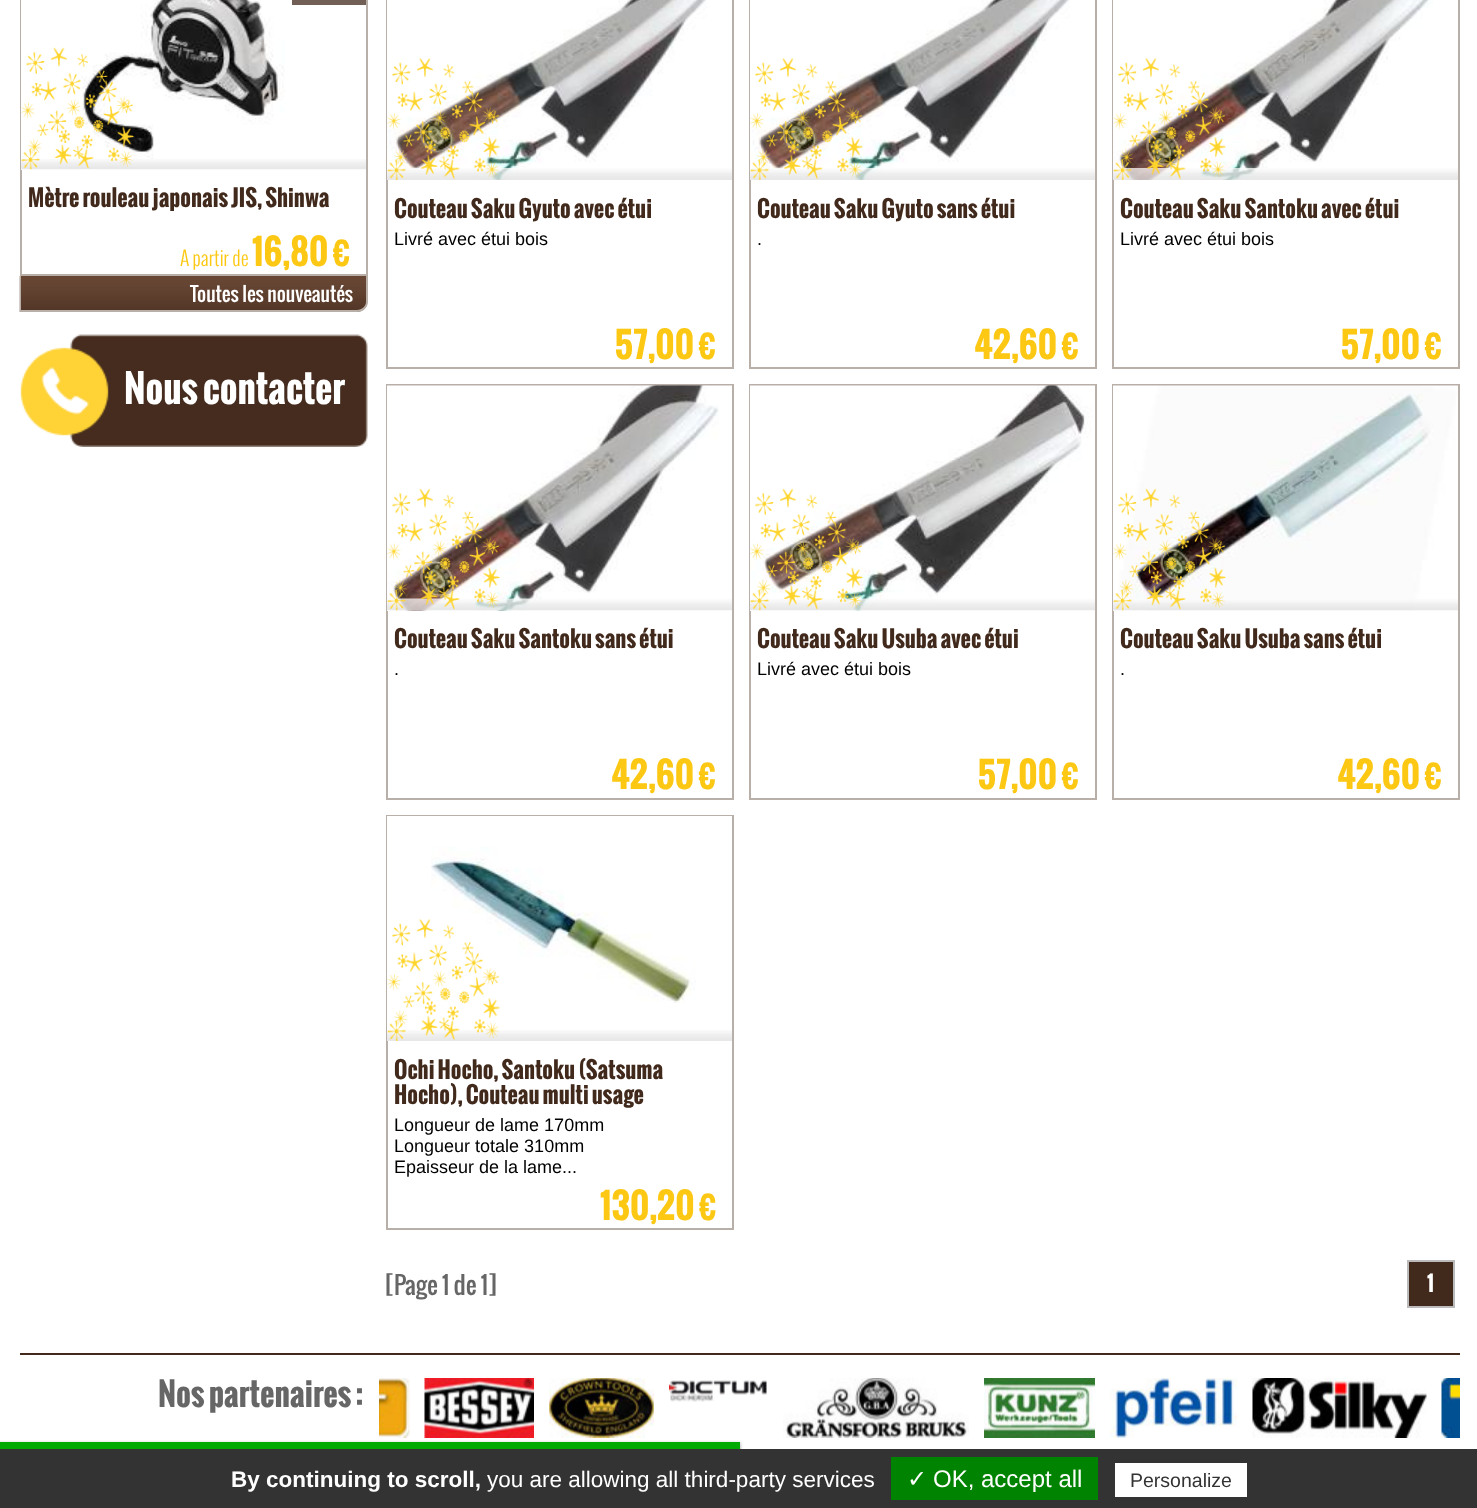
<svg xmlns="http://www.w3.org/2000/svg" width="1477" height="1508">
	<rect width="100%" height="100%" fill="#FFFFFF" />
	<rect x="21" y="-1" width="346" height="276" fill="none" stroke="#B8AFA9" stroke-width="2" />
	<rect x="21" y="0" width="1" height="170" fill="#FFFFFF" />
	<image x="81" y="0" width="204" height="159" href="assets/img1.png" />
	<rect x="292" y="0" width="74" height="5" fill="#715F55" />
	<image x="21" y="159" width="345" height="11" href="assets/img3.png" />
	<image x="21" y="47" width="113" height="123" href="assets/img2.png" />
	<text x="28" y="207" font-family="Oswald" font-size="22.5" font-weight="700" fill="#41291C">Mètre rouleau japonais JIS, Shinwa</text>
	<text x="180" y="266" font-family="Oswald" font-size="19.5" font-weight="300" fill="#FCC813">A partir de</text>
	<text x="252" y="266" font-family="Oswald" font-size="34.5" font-weight="700" fill="#FCC813">16,80 €</text>
	<image x="19" y="276" width="349" height="36" href="assets/img4.png" />
	<path d="M20 276H368V302C368 307 363 312 357 312H20ZM21 276H366V302C366 306 362 310 357 310H21Z" fill="#B8AFA9" fill-rule="evenodd" />
	<text x="190" y="302" font-family="Oswald" font-size="19.5" fill="#FFFFFF">Toutes les nouveautés</text>
	<image x="20" y="334" width="348" height="113" href="assets/img5.png" />
	<text x="124" y="404" font-family="Oswald" font-size="37.5" font-weight="700" fill="#FFFFFF">Nous contacter</text>
	<rect x="387" y="-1" width="346" height="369" fill="none" stroke="#B8AFA9" stroke-width="2" />
	<image x="387" y="0" width="320" height="180" href="assets/img6.png" />
	<image x="387" y="168" width="345" height="12" href="assets/img8.png" />
	<image x="387" y="58" width="113" height="122" href="assets/img7.png" />
	<text x="394" y="218" font-family="Oswald" font-size="22.5" font-weight="700" fill="#41291C">Couteau Saku Gyuto avec étui</text>
	<text x="394" y="245" font-family="Liberation Sans" font-size="18" fill="#000000">Livré avec étui bois</text>
	<text x="614" y="359" font-family="Oswald" font-size="34.5" font-weight="700" fill="#FCC813">57,00 €</text>
	<rect x="750" y="-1" width="346" height="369" fill="none" stroke="#B8AFA9" stroke-width="2" />
	<image x="750" y="0" width="320" height="180" href="assets/img9.png" />
	<image x="750" y="168" width="345" height="12" href="assets/img8.png" />
	<image x="750" y="58" width="113" height="122" href="assets/img10.png" />
	<text x="757" y="218" font-family="Oswald" font-size="22.5" font-weight="700" fill="#41291C">Couteau Saku Gyuto sans étui</text>
	<text x="757" y="245" font-family="Liberation Sans" font-size="18" fill="#000000">.</text>
	<text x="974" y="359" font-family="Oswald" font-size="34.5" font-weight="700" fill="#FCC813">42,60 €</text>
	<rect x="1113" y="-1" width="346" height="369" fill="none" stroke="#B8AFA9" stroke-width="2" />
	<image x="1113" y="0" width="320" height="180" href="assets/img11.png" />
	<image x="1113" y="168" width="345" height="12" href="assets/img13.png" />
	<image x="1113" y="58" width="113" height="122" href="assets/img12.png" />
	<text x="1120" y="218" font-family="Oswald" font-size="22.5" font-weight="700" fill="#41291C">Couteau Saku Santoku avec étui</text>
	<text x="1120" y="245" font-family="Liberation Sans" font-size="18" fill="#000000">Livré avec étui bois</text>
	<text x="1340" y="359" font-family="Oswald" font-size="34.5" font-weight="700" fill="#FCC813">57,00 €</text>
	<rect x="387" y="385" width="346" height="414" fill="none" stroke="#B8AFA9" stroke-width="2" />
	<rect x="387" y="610" width="1" height="1" fill="#FFFFFF" />
	<image x="387" y="385" width="345" height="226" href="assets/img14.png" />
	<image x="387" y="598" width="345" height="13" href="assets/img16.png" />
	<image x="387" y="488" width="113" height="123" href="assets/img15.png" />
	<text x="394" y="648" font-family="Oswald" font-size="22.5" font-weight="700" fill="#41291C">Couteau Saku Santoku sans étui</text>
	<text x="394" y="675" font-family="Liberation Sans" font-size="18" fill="#000000">.</text>
	<text x="611" y="789" font-family="Oswald" font-size="34.5" font-weight="700" fill="#FCC813">42,60 €</text>
	<rect x="750" y="385" width="346" height="414" fill="none" stroke="#B8AFA9" stroke-width="2" />
	<rect x="750" y="610" width="1" height="1" fill="#FFFFFF" />
	<image x="750" y="385" width="345" height="226" href="assets/img17.png" />
	<image x="750" y="598" width="345" height="13" href="assets/img19.png" />
	<image x="750" y="488" width="113" height="123" href="assets/img18.png" />
	<text x="757" y="648" font-family="Oswald" font-size="22.5" font-weight="700" fill="#41291C">Couteau Saku Usuba avec étui</text>
	<text x="757" y="675" font-family="Liberation Sans" font-size="18" fill="#000000">Livré avec étui bois</text>
	<text x="977" y="789" font-family="Oswald" font-size="34.5" font-weight="700" fill="#FCC813">57,00 €</text>
	<rect x="1113" y="385" width="346" height="414" fill="none" stroke="#B8AFA9" stroke-width="2" />
	<rect x="1113" y="610" width="1" height="1" fill="#FFFFFF" />
	<image x="1113" y="385" width="345" height="226" href="assets/img20.png" />
	<image x="1113" y="599" width="345" height="12" href="assets/img22.png" />
	<image x="1113" y="488" width="113" height="123" href="assets/img21.png" />
	<text x="1120" y="648" font-family="Oswald" font-size="22.5" font-weight="700" fill="#41291C">Couteau Saku Usuba sans étui</text>
	<text x="1120" y="675" font-family="Liberation Sans" font-size="18" fill="#000000">.</text>
	<text x="1337" y="789" font-family="Oswald" font-size="34.5" font-weight="700" fill="#FCC813">42,60 €</text>
	<rect x="387" y="816" width="346" height="413" fill="none" stroke="#B8AFA9" stroke-width="2" />
	<rect x="387" y="816" width="345" height="225" fill="#FFFFFF" />
	<image x="431" y="847" width="265" height="156" href="assets/img23.png" />
	<image x="387" y="1030" width="345" height="11" href="assets/img25.png" />
	<image x="387" y="919" width="113" height="122" href="assets/img24.png" />
	<g font-family="Oswald" font-size="22.5" font-weight="700" fill="#41291C">
		<text x="394" y="1079">Ochi Hocho, Santoku (Satsuma</text>
		<text x="394" y="1104">Hocho), Couteau multi usage</text>
	</g>
	<g font-family="Liberation Sans" font-size="18" fill="#000000">
		<text x="394" y="1131">Longueur de lame 170mm</text>
		<text x="394" y="1152">Longueur totale 310mm</text>
		<text x="394" y="1173">Epaisseur de la lame...</text>
	</g>
	<text x="600" y="1220" font-family="Oswald" font-size="34.5" font-weight="700" fill="#FCC813">130,20 €</text>
	<text x="385" y="1295" font-family="Oswald" font-size="24" fill="#666666">[Page 1 de 1]</text>
	<rect x="1408" y="1261" width="46" height="46" fill="#41291C" stroke="#BBBBBB" stroke-width="2" />
	<text x="1427" y="1292" font-family="Oswald" font-size="21" font-weight="700" fill="#FFFFFF">1</text>
	<rect x="20" y="1353" width="1440" height="2" fill="#41291C" />
	<text x="158" y="1407" font-family="Oswald" font-size="31.5" font-weight="700" fill="#666666">Nos partenaires :</text>
	<image x="379" y="1378" width="31" height="60" href="assets/img26.png" />
	<image x="424" y="1378" width="110" height="60" href="assets/img27.png" />
	<image x="549" y="1378" width="105" height="60" href="assets/img28.png" />
	<image x="669" y="1380" width="98" height="22" href="assets/img29.png" />
	<image x="783" y="1378" width="186" height="60" href="assets/img30.png" />
	<image x="984" y="1378" width="111" height="60" href="assets/img31.png" />
	<image x="1110" y="1378" width="128" height="60" href="assets/img32.png" />
	<image x="1252" y="1378" width="175" height="60" href="assets/img33.png" />
	<image x="1441" y="1378" width="19" height="60" href="assets/img34.png" />
	<rect x="0" y="1443" width="740" height="8" fill="#555555" filter="blur(1.5px)" />
	<rect x="0" y="1442" width="740" height="7" fill="#FFFFFF" filter="blur(1.5px)" />
	<rect x="0" y="1442" width="740" height="7" fill="#00AA00" />
	<rect x="0" y="1449" width="1477" height="59" fill="#333333" />
	<text x="231" y="1487" font-family="Liberation Sans" font-size="22.5" font-weight="700" fill="#FFFFFF">By continuing to scroll,</text>
	<text x="487" y="1487" font-family="Liberation Sans" font-size="22.5" fill="#FFFFFF">you are allowing all third-party services</text>
	<rect x="891" y="1457" width="207" height="43" fill="#008300" />
	<text x="907" y="1487" font-family="DejaVu Sans" font-size="24" fill="#FFFFFF">✓</text>
	<text x="933" y="1487" font-family="Liberation Sans" font-size="24" fill="#FFFFFF">OK, accept all</text>
	<rect x="1115" y="1463" width="132" height="34" fill="#FFFFFF" />
	<text x="1130" y="1487" font-family="Liberation Sans" font-size="19.5" fill="#333333">Personalize</text>
</svg>
